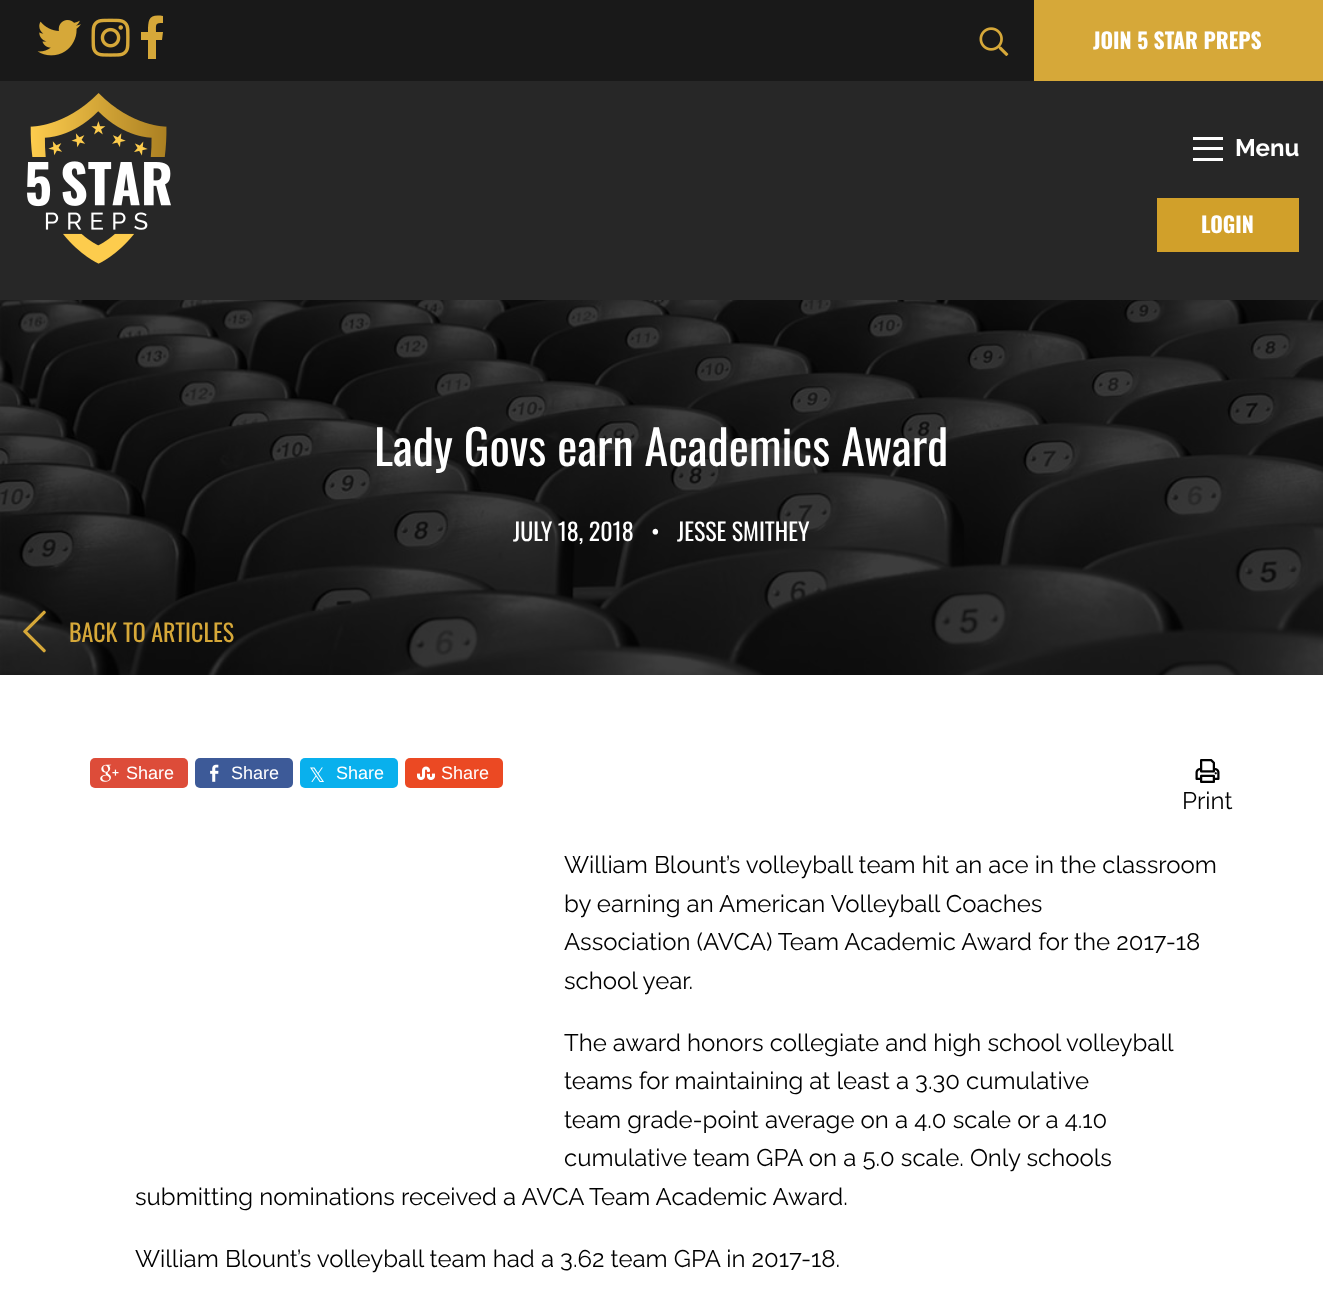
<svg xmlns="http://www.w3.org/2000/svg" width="1323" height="1305">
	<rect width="100%" height="100%" fill="#FFFFFF" />
	<rect x="0" y="0" width="1034" height="81" fill="#191919" />
	<image x="37" y="20" width="44" height="36" href="assets/img1.png" />
	<image x="91" y="18" width="39" height="39" href="assets/img2.png" />
	<path d="M148 59V40H141V32H148C148 19 149 14 163 16V23C155 23 156 24 156 32H163L162 40H156V59Z" fill="#D6A839" />
	<image x="979" y="27" width="30" height="29" href="assets/img3.png" />
	<rect x="1034" y="0" width="289" height="81" fill="#D6A839" />
	<text x="1093" y="49" font-family="Oswald" font-size="21.5" font-weight="700" fill="#FFFFFF">JOIN 5 STAR PREPS</text>
	<rect x="0" y="81" width="1323" height="219" fill="#272727" />
	<image x="27" y="93" width="144" height="171" href="assets/img4.png" />
	<rect x="1193" y="158" width="30" height="3" fill="#FEFEFE" />
	<rect x="1193" y="147" width="30" height="3" fill="#FEFEFE" />
	<rect x="1193" y="137" width="30" height="3" fill="#FEFEFE" />
	<text x="1235" y="156" font-family="Raleway" font-size="24" font-weight="700" fill="#FFFFFF">Menu</text>
	<rect x="1157" y="198" width="142" height="54" fill="#D1A02A" />
	<text x="1201" y="233" font-family="Oswald" font-size="21.5" font-weight="700" fill="#FFFFFF">LOGIN</text>
	<image x="0" y="300" width="1323" height="375" href="assets/img5.png" />
	<text x="374" y="466" font-family="Oswald" font-size="48" fill="#FFFFFF">Lady Govs earn Academics Award</text>
	<g font-family="Oswald" font-size="24" fill="#FFFFFF">
		<text x="513" y="541">JULY 18, 2018</text>
		<text x="651" y="541">•</text>
		<text x="677" y="541">JESSE SMITHEY</text>
	</g>
	<image x="23" y="610" width="23" height="43" href="assets/img6.png" />
	<text x="69" y="642" font-family="Oswald" font-size="24" fill="#D6A839">BACK TO ARTICLES</text>
	<rect x="90" y="758" width="98" height="30" rx="5" fill="#DD4C39" />
	<image x="100" y="764" width="19" height="18" href="assets/img7.png" />
	<text x="126" y="779" font-family="Liberation Sans" font-size="18" fill="#FFFFFF">Share</text>
	<rect x="195" y="758" width="98" height="30" rx="5" fill="#3D5A98" />
	<image x="210" y="764" width="9" height="18" href="assets/img8.png" />
	<text x="231" y="779" font-family="Liberation Sans" font-size="18" fill="#FFFFFF">Share</text>
	<rect x="300" y="758" width="98" height="30" rx="5" fill="#09B0ED" />
	<text x="309" y="782" font-family="DejaVu Sans" font-size="20" fill="#FFFFFF">𝕏</text>
	<text x="336" y="779" font-family="Liberation Sans" font-size="18" fill="#FFFFFF">Share</text>
	<rect x="405" y="758" width="98" height="30" rx="5" fill="#EB4923" />
	<image x="417" y="766" width="18" height="14" href="assets/img9.png" />
	<text x="441" y="779" font-family="Liberation Sans" font-size="18" fill="#FFFFFF">Share</text>
	<image x="1195" y="759" width="25" height="24" href="assets/img10.png" />
	<g font-family="Raleway" font-size="24" fill="#000000">
		<text x="1182" y="809">Print</text>
		<text x="564" y="873">William Blount’s volleyball team hit an ace in the classroom</text>
		<text x="564" y="912">by earning an American Volleyball Coaches</text>
		<text x="564" y="950">Association (AVCA) Team Academic Award for the 2017-18</text>
		<text x="564" y="989">school year.</text>
		<text x="564" y="1051">The award honors collegiate and high school volleyball</text>
		<text x="564" y="1089">teams for maintaining at least a 3.30 cumulative</text>
		<text x="564" y="1128">team grade-point average on a 4.0 scale or a 4.10</text>
		<text x="564" y="1166">cumulative team GPA on a 5.0 scale. Only schools</text>
		<text x="135" y="1205">submitting nominations received a AVCA Team Academic Award.</text>
		<text x="135" y="1267">William Blount’s volleyball team had a 3.62 team GPA in 2017-18.</text>
	</g>
</svg>
